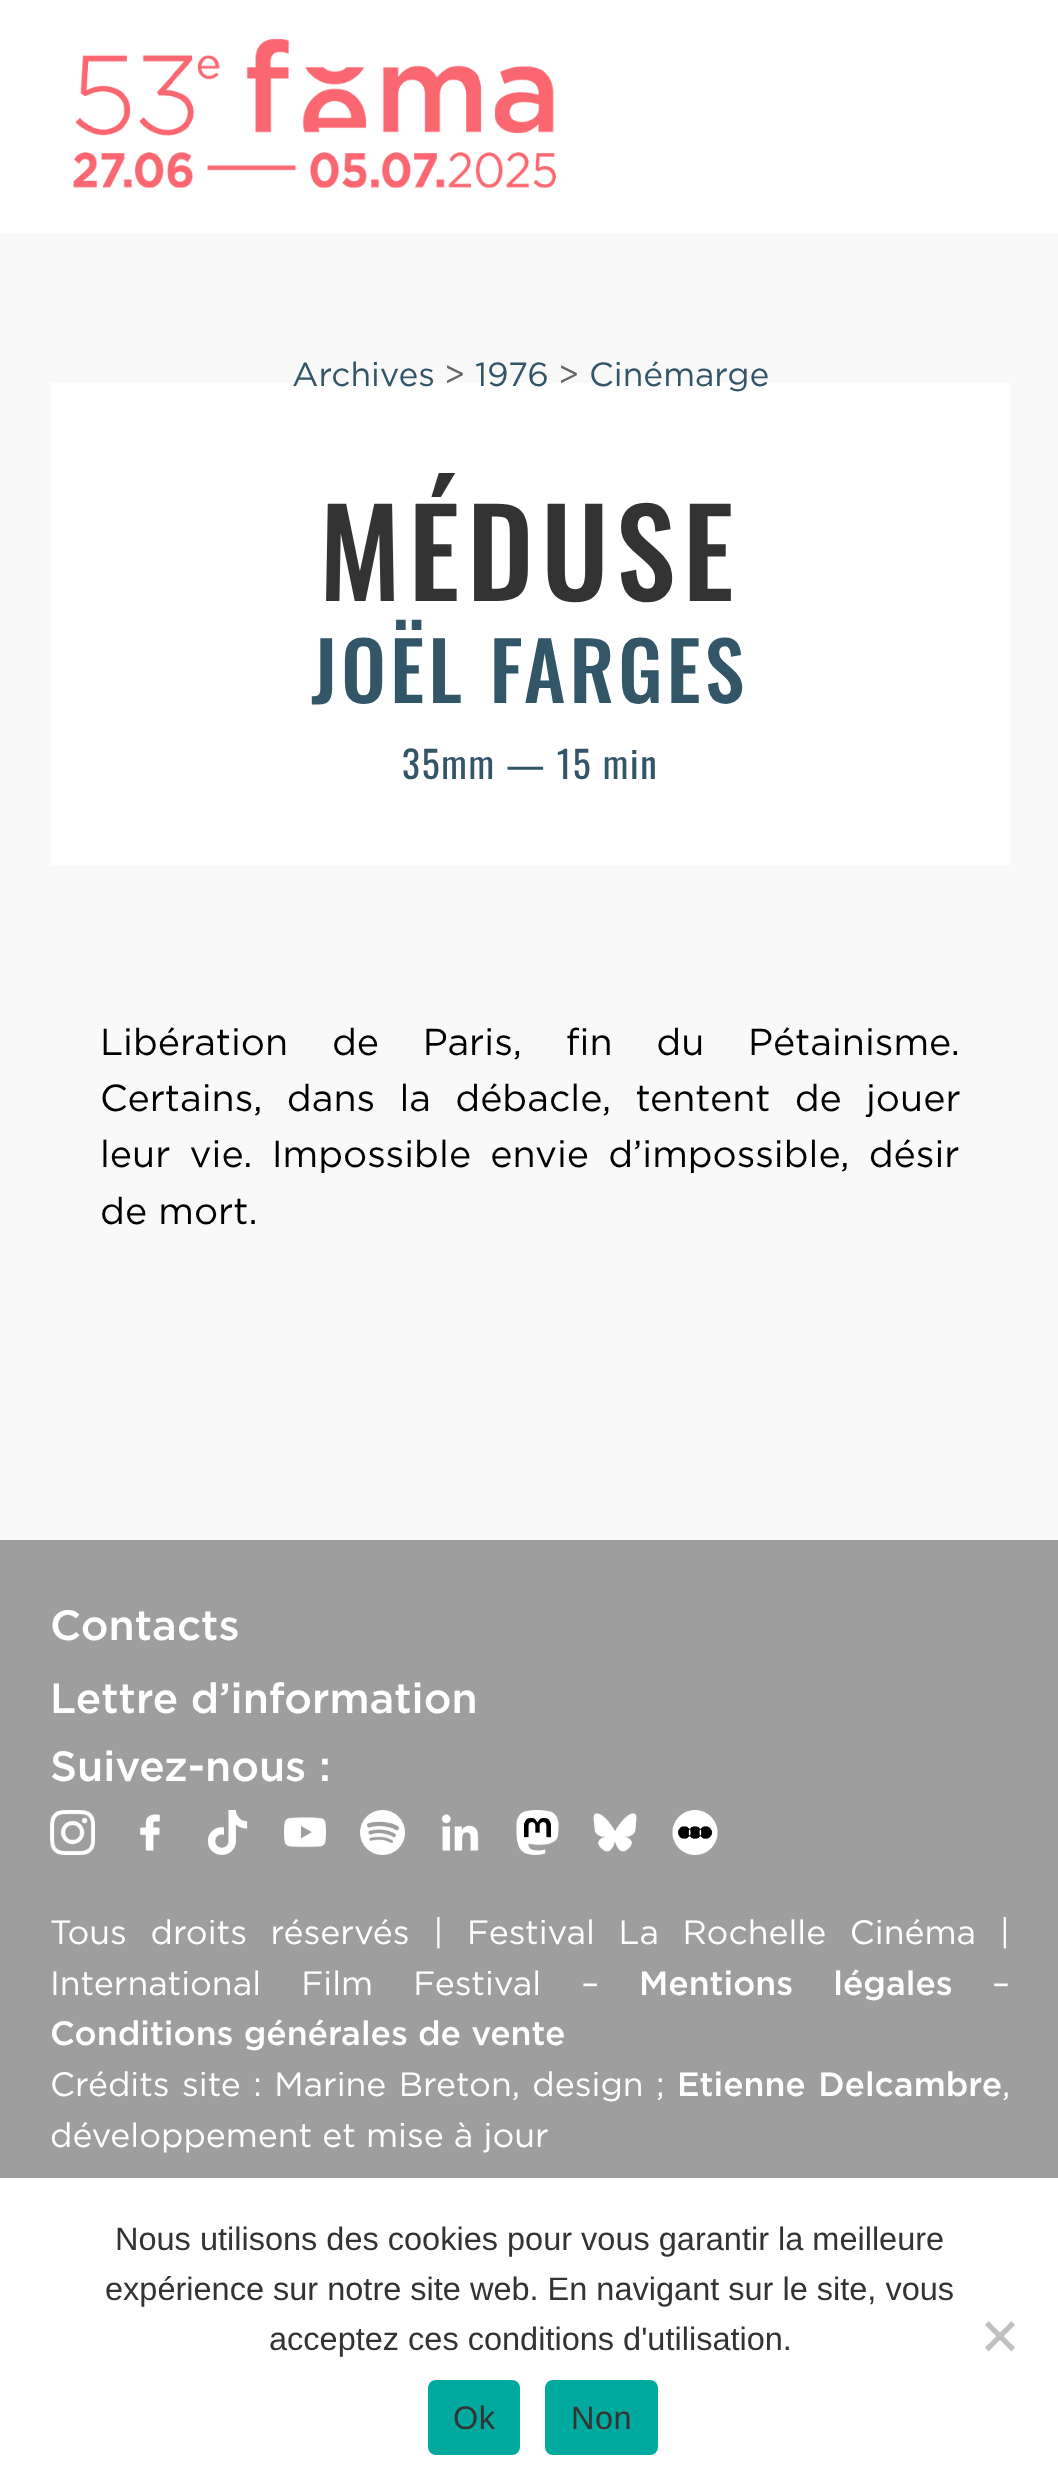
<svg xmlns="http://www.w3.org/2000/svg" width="1058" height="2491">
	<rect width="100%" height="100%" fill="#F9F9F9" />
	<rect x="0" y="0" width="1058" height="233" fill="#FFFFFF" />
	<image x="73" y="39" width="483" height="149" href="assets/img1.png" />
	<rect x="50" y="383" width="960" height="482" fill="#FFFFFF" />
	<text x="292" y="386" font-family="Gotham" font-size="33.5" fill="#325568">Archives</text>
	<text x="444" y="386" font-family="Gotham" font-size="33.5" fill="#666666">&gt;</text>
	<text x="475" y="386" font-family="Gotham" font-size="33.5" fill="#325568">1976</text>
	<text x="558" y="386" font-family="Gotham" font-size="33.5" fill="#666666">&gt;</text>
	<text x="589" y="386" font-family="Gotham" font-size="33.5" fill="#325568">Cinémarge</text>
	<text x="319" y="601" font-family="Oswald" font-size="120" font-weight="500" letter-spacing="7.25" fill="#333333">MÉDUSE</text>
	<text x="311" y="703" font-family="Oswald" font-size="80" font-weight="500" letter-spacing="4" fill="#325568">JOËL FARGES</text>
	<text x="402" y="779" font-family="Oswald" font-size="37.5" letter-spacing="1.75" fill="#325568">35mm — 15 min</text>
	<g font-family="Gotham" font-size="37.5" fill="#000000">
		<text x="100" y="1055" word-spacing="32.5">Libération de Paris, fin du Pétainisme.</text>
		<text x="100" y="1111" word-spacing="13">Certains, dans la débacle, tentent de jouer</text>
		<text x="100" y="1167" word-spacing="8">leur vie. Impossible envie d’impossible, désir</text>
		<text x="100" y="1224">de mort.</text>
	</g>
	<rect x="0" y="1540" width="1058" height="638" fill="#9E9E9E" />
	<g font-family="Gotham" font-size="42.25" font-weight="500" fill="#FFFFFF">
		<text x="50" y="1640">Contacts</text>
		<text x="50" y="1713">Lettre d’information</text>
		<text x="50" y="1781">Suivez-nous :</text>
	</g>
	<image x="50" y="1810" width="45" height="45" href="assets/img2.png" />
	<image x="140" y="1814" width="20" height="37" href="assets/img3.png" />
	<image x="207" y="1810" width="41" height="45" href="assets/img4.png" />
	<image x="284" y="1817" width="42" height="31" href="assets/img5.png" />
	<image x="360" y="1810" width="45" height="45" href="assets/img6.png" />
	<image x="441" y="1814" width="38" height="37" href="assets/img7.png" />
	<image x="516" y="1810" width="43" height="45" href="assets/img8.png" />
	<image x="593" y="1813" width="44" height="39" href="assets/img9.png" />
	<image x="672" y="1810" width="46" height="45" href="assets/img10.png" />
	<g font-family="Gotham" font-size="33.75" fill="#FFFFFF">
		<text x="50" y="1944" word-spacing="13.5">Tous droits réservés | Festival La Rochelle Cinéma |</text>
		<text x="50" y="1995" word-spacing="30">International Film Festival –</text>
	</g>
	<text x="639" y="1995" word-spacing="30" font-family="Gotham" font-size="33.75" font-weight="500" fill="#FFFFFF">Mentions légales</text>
	<text x="992" y="1995" font-family="Gotham" font-size="33.75" fill="#FFFFFF">–</text>
	<text x="50" y="2045" font-family="Gotham" font-size="33.75" font-weight="500" fill="#FFFFFF">Conditions générales de vente</text>
	<text x="50" y="2096" word-spacing="2.25" font-family="Gotham" font-size="33.75" fill="#FFFFFF">Crédits site : Marine Breton, design ;</text>
	<text x="677" y="2096" word-spacing="2.25" font-family="Gotham" font-size="33.75" font-weight="500" fill="#FFFFFF">Etienne Delcambre</text>
	<g font-family="Gotham" font-size="33.75" fill="#FFFFFF">
		<text x="1002" y="2096">,</text>
		<text x="50" y="2147">développement et mise à jour</text>
	</g>
	<rect x="0" y="2178" width="1058" height="313" fill="#FFFFFF" />
	<g font-family="Liberation Sans" font-size="32.5" fill="#333333">
		<text x="115" y="2250">Nous utilisons des cookies pour vous garantir la meilleure</text>
		<text x="105" y="2300">expérience sur notre site web. En navigant sur le site, vous</text>
		<text x="269" y="2350">acceptez ces conditions d'utilisation.</text>
	</g>
	<path d="M1011.5 2321L1015 2325L988.5 2351.5L985 2347.5Z" fill="#C0C0C0" />
	<path d="M985 2325L988.5 2321L1015 2347.5L1011.5 2351.5Z" fill="#C0C0C0" />
	<rect x="428" y="2380" width="92" height="75" rx="8" fill="#00A99D" />
	<text x="453" y="2429" font-family="Liberation Sans" font-size="32.5" letter-spacing="0.5" fill="#333333">Ok</text>
	<rect x="545" y="2380" width="113" height="75" rx="8" fill="#00A99D" />
	<text x="571" y="2429" font-family="Liberation Sans" font-size="32.5" letter-spacing="0.5" fill="#333333">Non</text>
</svg>
